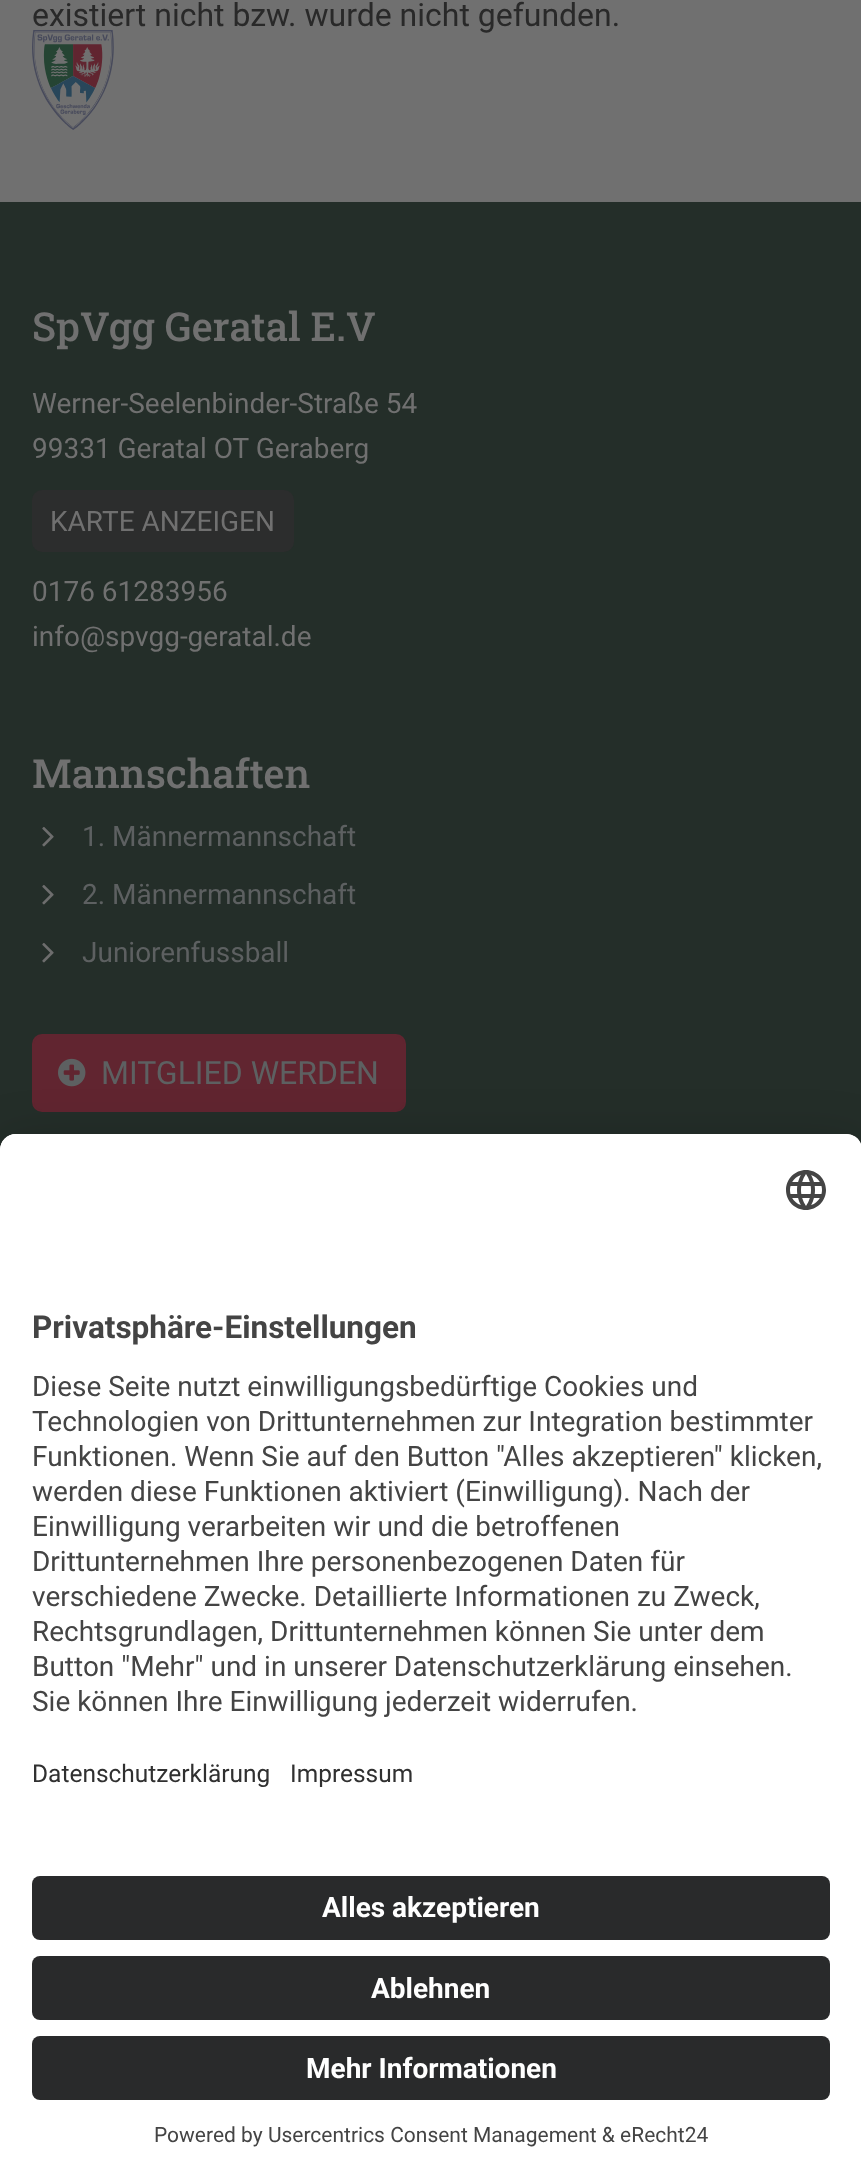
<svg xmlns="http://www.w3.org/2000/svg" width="861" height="2180">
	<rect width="100%" height="100%" fill="#707070" />
	<text x="32" y="26" font-family="Roboto" font-size="32" fill="#292929">existiert nicht bzw. wurde nicht gefunden.</text>
	<image x="32" y="30" width="82" height="100" href="assets/img1.png" />
	<rect x="0" y="202" width="861" height="948" fill="#242E29" />
	<text x="32" y="341" font-family="Roboto Slab" font-size="40" font-weight="500" fill="#707070">SpVgg Geratal E.V</text>
	<g font-family="Roboto" font-size="28" fill="#707070">
		<text x="32" y="413">Werner-Seelenbinder-Straße 54</text>
		<text x="32" y="458">99331 Geratal OT Geraberg</text>
	</g>
	<rect x="32" y="490" width="262" height="62" rx="10" fill="#2C2D2D" />
	<g font-family="Roboto" font-size="28" fill="#707070">
		<text x="50" y="531">KARTE ANZEIGEN</text>
		<text x="32" y="601">0176 61283956</text>
		<text x="32" y="646">info@spvgg-geratal.de</text>
	</g>
	<text x="32" y="788" font-family="Roboto Slab" font-size="40" font-weight="500" fill="#707070">Mannschaften</text>
	<image x="42" y="826" width="12" height="21" href="assets/img2.png" />
	<text x="82" y="846" font-family="Roboto" font-size="28" fill="#5D6061">1. Männermannschaft</text>
	<image x="42" y="884" width="12" height="21" href="assets/img2.png" />
	<text x="82" y="904" font-family="Roboto" font-size="28" fill="#5D6061">2. Männermannschaft</text>
	<image x="42" y="942" width="12" height="21" href="assets/img2.png" />
	<text x="82" y="962" font-family="Roboto" font-size="28" fill="#5D6061">Juniorenfussball</text>
	<rect x="33" y="1035" width="372" height="76" rx="9" fill="#612530" stroke="#612530" stroke-width="2" />
	<image x="58" y="1058" width="28" height="29" href="assets/img3.png" />
	<text x="101" y="1084" font-family="Roboto" font-size="32" fill="#5D6061">MITGLIED WERDEN</text>
	<rect x="0" y="1144" width="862" height="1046" rx="16" fill="#000000" fill-opacity="0.22" filter="blur(26px)" />
	<path d="M16 1134H846C855 1134 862 1141 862 1150V2180H0V1150C0 1141 7 1134 16 1134Z" fill="#FFFFFF" />
	<path d="M16 1134H846C855 1134 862 1141 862 1150V1852H0V1150C0 1141 7 1134 16 1134Z" fill="#FFFFFF" />
	<image x="786" y="1170" width="40" height="40" href="assets/img4.png" />
	<text x="32" y="1338" font-family="Roboto" font-size="31.5" font-weight="700" fill="#444444">Privatsphäre-Einstellungen</text>
	<g font-family="Roboto" font-size="28" fill="#444444">
		<text x="32" y="1396">Diese Seite nutzt einwilligungsbedürftige Cookies und</text>
		<text x="32" y="1431">Technologien von Drittunternehmen zur Integration bestimmter</text>
		<text x="32" y="1466">Funktionen. Wenn Sie auf den Button "Alles akzeptieren" klicken,</text>
		<text x="32" y="1501">werden diese Funktionen aktiviert (Einwilligung). Nach der</text>
		<text x="32" y="1536">Einwilligung verarbeiten wir und die betroffenen</text>
		<text x="32" y="1571">Drittunternehmen Ihre personenbezogenen Daten für</text>
		<text x="32" y="1606">verschiedene Zwecke. Detaillierte Informationen zu Zweck,</text>
		<text x="32" y="1641">Rechtsgrundlagen, Drittunternehmen können Sie unter dem</text>
		<text x="32" y="1676">Button "Mehr" und in unserer Datenschutzerklärung einsehen.</text>
		<text x="32" y="1711">Sie können Ihre Einwilligung jederzeit widerrufen.</text>
	</g>
	<g font-family="Roboto" font-size="24.5" fill="#303030">
		<text x="32" y="1782">Datenschutzerklärung</text>
		<text x="290" y="1782">Impressum</text>
	</g>
	<rect x="32" y="1876" width="798" height="64" rx="8" fill="#292A2B" />
	<text x="322" y="1917" font-family="Roboto" font-size="28" font-weight="700" fill="#FFFFFF">Alles akzeptieren</text>
	<rect x="32" y="1956" width="798" height="64" rx="8" fill="#292A2B" />
	<text x="371" y="1998" font-family="Roboto" font-size="28" font-weight="700" fill="#FFFFFF">Ablehnen</text>
	<rect x="32" y="2036" width="798" height="64" rx="8" fill="#292A2B" />
	<text x="306" y="2078" font-family="Roboto" font-size="28" font-weight="700" fill="#FFFFFF">Mehr Informationen</text>
	<text x="154" y="2142" font-family="Roboto" font-size="21" fill="#444444">Powered by Usercentrics Consent Management &amp; eRecht24</text>
</svg>
